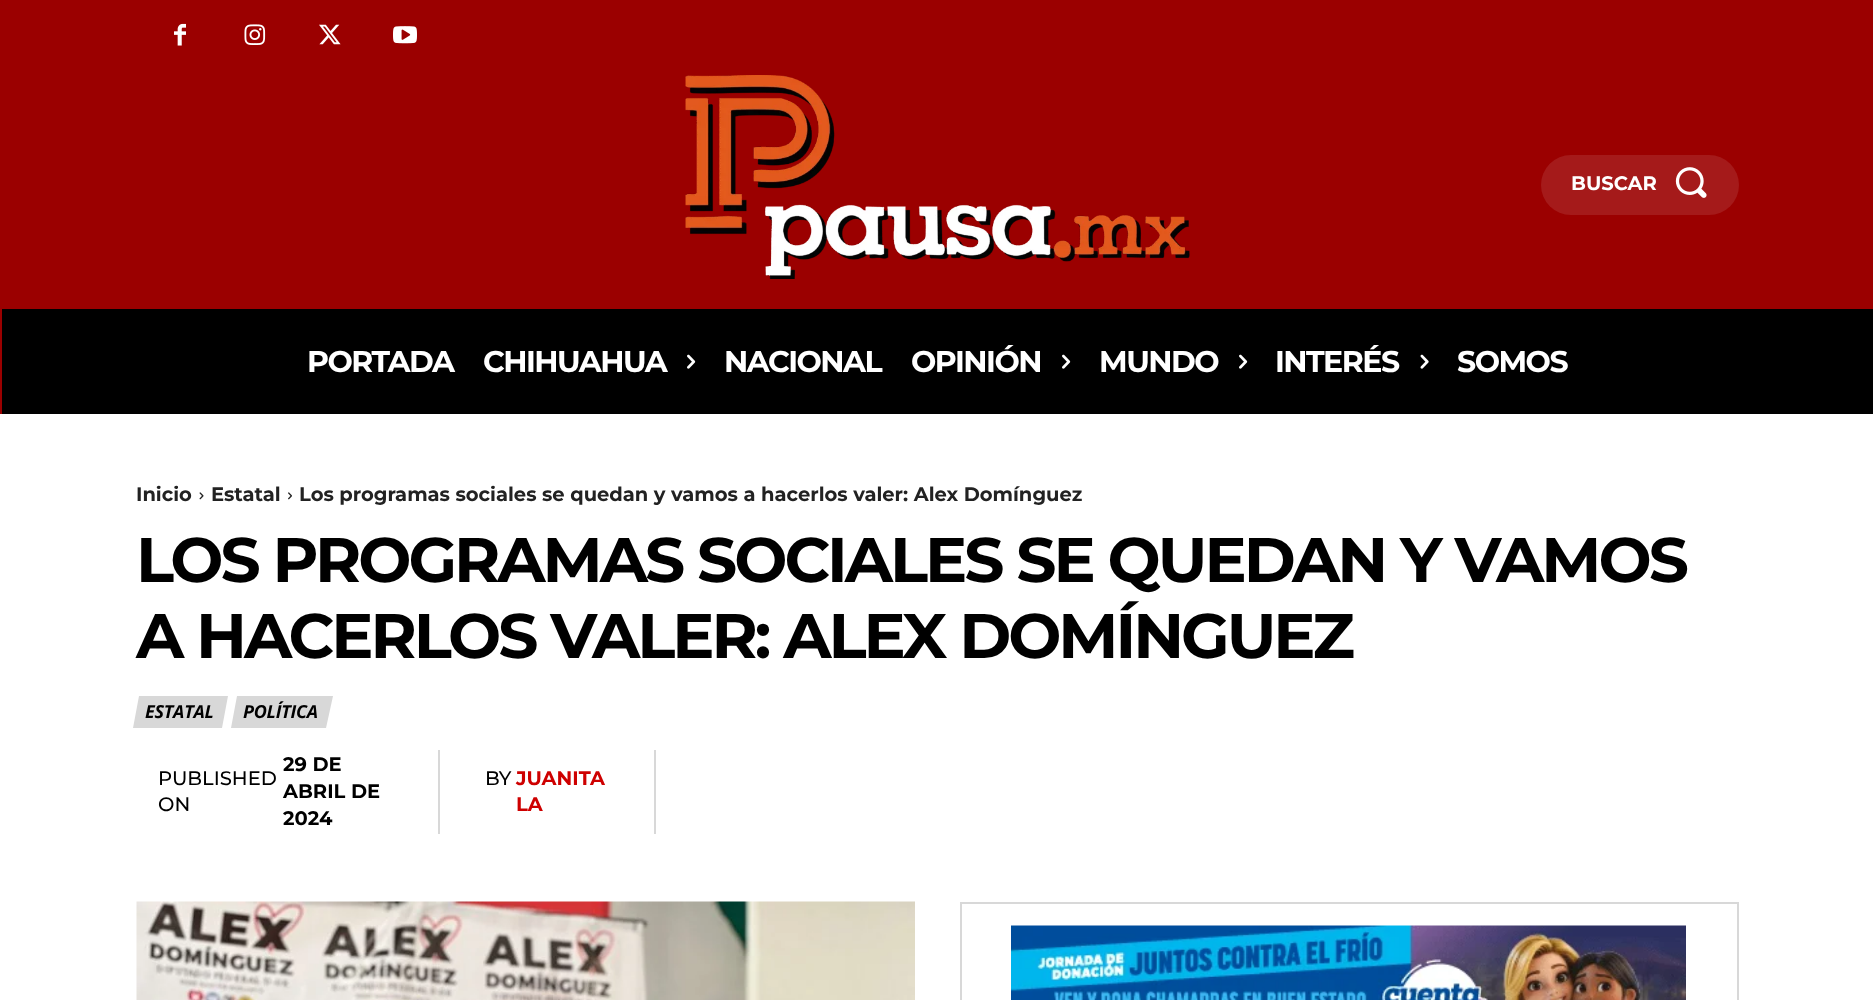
<svg xmlns="http://www.w3.org/2000/svg" width="1873" height="1000">
	<rect width="100%" height="100%" fill="#FFFFFF" />
	<rect x="0" y="0" width="1873" height="414" fill="#9B0000" />
	<image x="174" y="23" width="12" height="23" href="assets/img1.png" />
	<image x="244" y="24" width="22" height="21" href="assets/img2.png" />
	<image x="319" y="24" width="22" height="21" href="assets/img3.png" />
	<image x="393" y="26" width="24" height="18" href="assets/img4.png" />
	<image x="685" y="75" width="505" height="204" href="assets/img5.png" />
	<rect x="1541" y="155" width="198" height="60" rx="30" fill="#A51A1A" />
	<text x="1571" y="190" font-family="Montserrat" font-size="19.5" font-weight="700" fill="#FFFFFF">BUSCAR</text>
	<image x="1675" y="167" width="32" height="31" href="assets/img6.png" />
	<rect x="2" y="309" width="1871" height="105" fill="#000000" />
	<g font-family="Montserrat" font-size="30" font-weight="700" letter-spacing="-1.5" fill="#FFFFFF">
		<text x="307" y="372">PORTADA</text>
		<text x="483" y="372">CHIHUAHUA</text>
	</g>
	<image x="687" y="354" width="9" height="15" href="assets/img7.png" />
	<g font-family="Montserrat" font-size="30" font-weight="700" letter-spacing="-1.5" fill="#FFFFFF">
		<text x="724" y="372">NACIONAL</text>
		<text x="911" y="372">OPINIÓN</text>
	</g>
	<image x="1062" y="354" width="9" height="15" href="assets/img7.png" />
	<text x="1099" y="372" font-family="Montserrat" font-size="30" font-weight="700" letter-spacing="-1.5" fill="#FFFFFF">MUNDO</text>
	<image x="1239" y="354" width="9" height="15" href="assets/img7.png" />
	<text x="1275" y="372" font-family="Montserrat" font-size="30" font-weight="700" letter-spacing="-1.5" fill="#FFFFFF">INTERÉS</text>
	<image x="1420" y="354" width="9" height="15" href="assets/img8.png" />
	<text x="1457" y="372" font-family="Montserrat" font-size="30" font-weight="700" letter-spacing="-1.5" fill="#FFFFFF">SOMOS</text>
	<text x="136" y="501" font-family="Montserrat" font-size="19.5" font-weight="700" fill="#222222">Inicio</text>
	<image x="199" y="492" width="5" height="8" href="assets/img9.png" />
	<text x="211" y="501" font-family="Montserrat" font-size="19.5" font-weight="700" fill="#222222">Estatal</text>
	<image x="288" y="492" width="4" height="8" href="assets/img10.png" />
	<text x="299" y="501" font-family="Montserrat" font-size="19.5" font-weight="700" fill="#222222">Los programas sociales se quedan y vamos a hacerlos valer: Alex Domínguez</text>
	<g font-family="Montserrat" font-size="63" font-weight="700" letter-spacing="-3" fill="#000000">
		<text x="136" y="582">LOS PROGRAMAS SOCIALES SE QUEDAN Y VAMOS</text>
		<text x="136" y="658">A HACERLOS VALER: ALEX DOMÍNGUEZ</text>
	</g>
	<path d="M139 696H228L222 728H133Z" fill="#D8D8D8" />
	<text x="145" y="718" font-family="Open Sans" font-size="18" font-weight="700" font-style="italic" letter-spacing="-0.25" fill="#000000">ESTATAL</text>
	<path d="M237 696H333L326 728H231Z" fill="#D8D8D8" />
	<text x="243" y="718" font-family="Open Sans" font-size="18" font-weight="700" font-style="italic" letter-spacing="-0.25" fill="#000000">POLÍTICA</text>
	<rect x="438" y="750" width="2" height="84" fill="#D8D8D8" />
	<g font-family="Montserrat" font-size="19.5" font-weight="500" fill="#000000">
		<text x="158" y="785">PUBLISHED</text>
		<text x="158" y="811">ON</text>
	</g>
	<g font-family="Montserrat" font-size="19.5" font-weight="700" fill="#000000">
		<text x="283" y="771">29 DE</text>
		<text x="283" y="798">ABRIL DE</text>
		<text x="283" y="825">2024</text>
	</g>
	<rect x="654" y="750" width="2" height="84" fill="#D8D8D8" />
	<text x="485" y="785" font-family="Montserrat" font-size="19.5" font-weight="500" fill="#000000">BY</text>
	<g font-family="Montserrat" font-size="19.5" font-weight="700" fill="#CE0000">
		<text x="516" y="785">JUANITA</text>
		<text x="516" y="811">LA</text>
	</g>
	<image x="136" y="901" width="779" height="99" href="assets/img11.png" />
	<rect x="961" y="903" width="777" height="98" fill="none" stroke="#D8D8D8" stroke-width="2" />
	<image x="1011" y="925" width="675" height="75" href="assets/img12.png" />
</svg>
